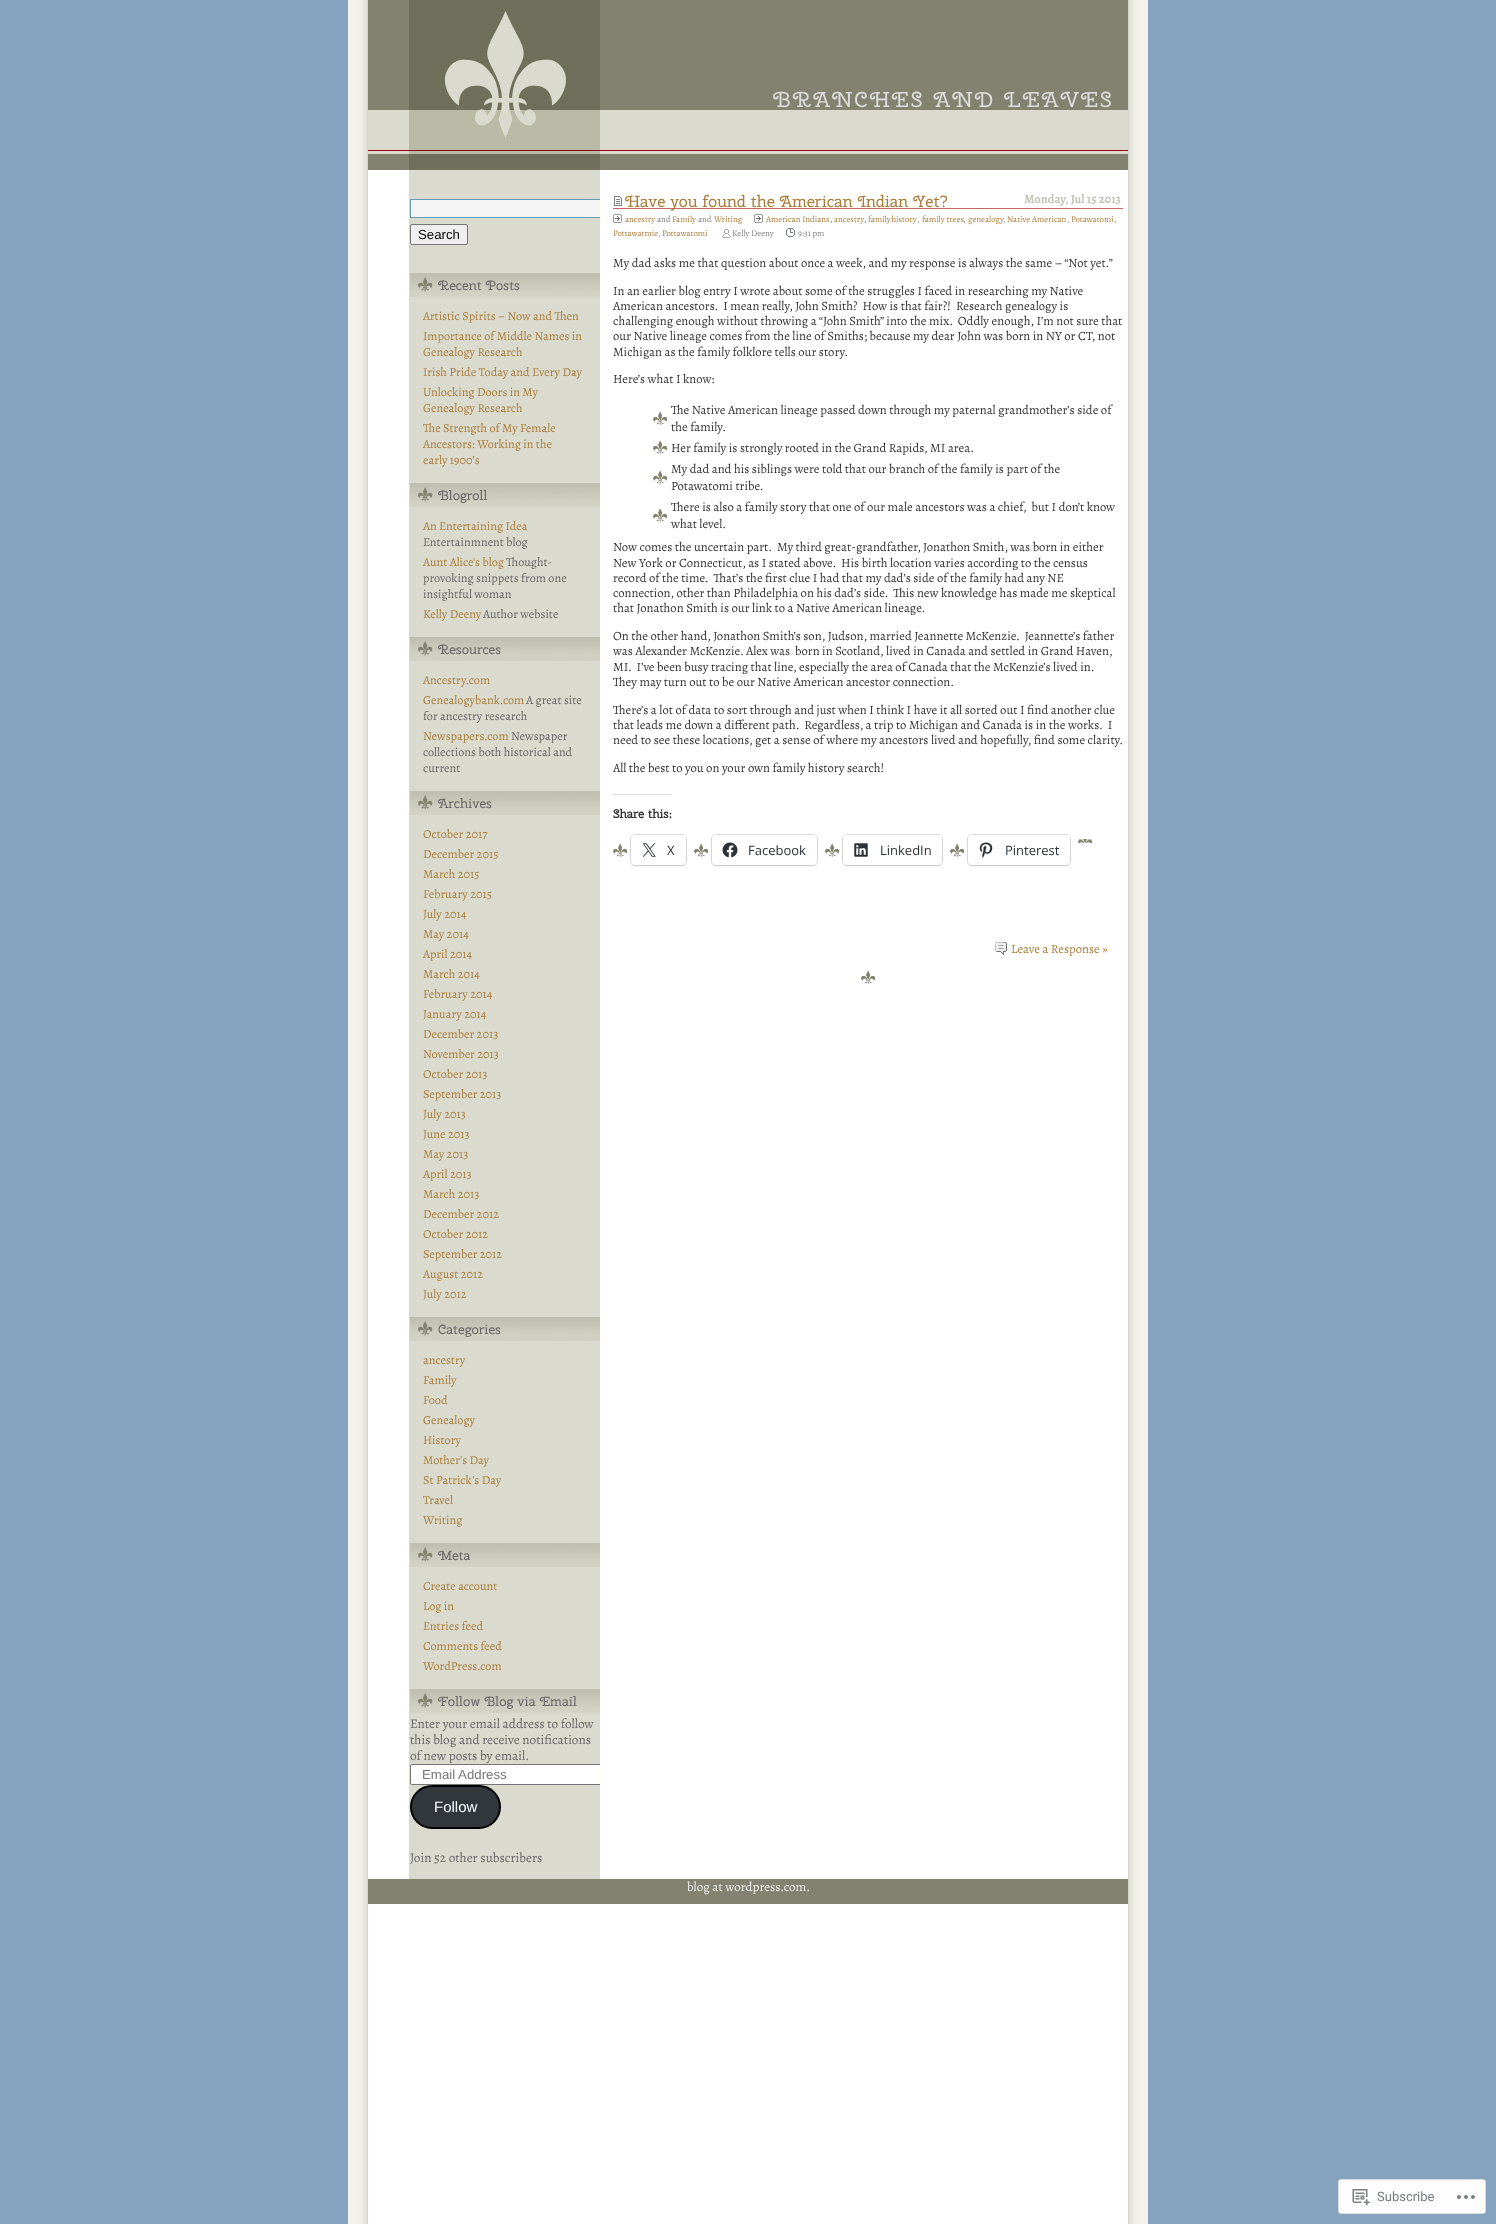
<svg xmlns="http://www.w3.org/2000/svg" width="1496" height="2224">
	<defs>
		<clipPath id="clip1"><rect x="408" y="190" width="192" height="1689" /></clipPath>
	</defs>
	<rect width="100%" height="100%" fill="#85A2BF" />
	<image x="348" y="0" width="800" height="2224" href="assets/img1.png" />
	<rect x="368" y="170" width="760" height="1709" fill="#FFFFFF" />
	<image x="408" y="170" width="194" height="1709" href="assets/img2.png" />
	<image x="368" y="0" width="760" height="170" href="assets/img3.png" />
	<text x="773" y="107" font-family="Cherry Swash" font-size="21.6" letter-spacing="2.2" fill="#DDDDDD">BRANCHES AND LEAVES</text>
	<rect x="411" y="200" width="189" height="17" fill="#F5F5F5" />
	<g clip-path="url(#clip1)">
		<rect x="410.5" y="199.5" width="193" height="18" fill="none" stroke="#669BB4" />
	</g>
	<rect x="410.5" y="224.5" width="57" height="20" rx="1.5" fill="#EFEFEF" stroke="#767676" />
	<text x="418" y="239" font-family="Liberation Sans" font-size="13.25" fill="#000000">Search</text>
	<image x="410" y="273" width="190" height="24" href="assets/img4.png" />
	<text x="438" y="290" font-family="Cherry Swash" font-size="13.25" fill="#666666">Recent Posts</text>
	<g font-family="Alegreya" font-size="12.25" fill="#AA7D39">
		<text x="423" y="320">Artistic Spirits – Now and Then</text>
		<text x="423" y="340">Importance of Middle Names in</text>
		<text x="423" y="356">Genealogy Research</text>
		<text x="423" y="376">Irish Pride Today and Every Day</text>
		<text x="423" y="396">Unlocking Doors in My</text>
		<text x="423" y="412">Genealogy Research</text>
		<text x="423" y="432">The Strength of My Female</text>
		<text x="423" y="448">Ancestors: Working in the</text>
		<text x="423" y="464">early 1900’s</text>
	</g>
	<image x="410" y="483" width="190" height="24" href="assets/img4.png" />
	<text x="438" y="500" font-family="Cherry Swash" font-size="13.25" fill="#666666">Blogroll</text>
	<text x="423" y="530" font-family="Alegreya" font-size="12.25" fill="#AA7D39">An Entertaining Idea</text>
	<text x="423" y="546" font-family="Alegreya" font-size="12.25" fill="#666666">Entertainmnent blog</text>
	<text x="423" y="566" font-family="Alegreya" font-size="12.25" fill="#AA7D39">Aunt Alice's blog</text>
	<g font-family="Alegreya" font-size="12.25" fill="#666666">
		<text x="506" y="566">Thought-</text>
		<text x="423" y="582">provoking snippets from one</text>
		<text x="423" y="598">insightful woman</text>
	</g>
	<text x="423" y="618" font-family="Alegreya" font-size="12.25" fill="#AA7D39">Kelly Deeny</text>
	<text x="483" y="618" font-family="Alegreya" font-size="12.25" fill="#666666">Author website</text>
	<image x="410" y="637" width="190" height="24" href="assets/img4.png" />
	<text x="438" y="654" font-family="Cherry Swash" font-size="13.25" fill="#666666">Resources</text>
	<g font-family="Alegreya" font-size="12.25" fill="#AA7D39">
		<text x="423" y="684">Ancestry.com</text>
		<text x="423" y="704">Genealogybank.com</text>
	</g>
	<g font-family="Alegreya" font-size="12.25" fill="#666666">
		<text x="526" y="704">A great site</text>
		<text x="423" y="720">for ancestry research</text>
	</g>
	<text x="423" y="740" font-family="Alegreya" font-size="12.25" fill="#AA7D39">Newspapers.com</text>
	<g font-family="Alegreya" font-size="12.25" fill="#666666">
		<text x="511" y="740">Newspaper</text>
		<text x="423" y="756">collections both historical and</text>
		<text x="423" y="772">current</text>
	</g>
	<image x="410" y="791" width="190" height="24" href="assets/img4.png" />
	<text x="438" y="808" font-family="Cherry Swash" font-size="13.25" fill="#666666">Archives</text>
	<g font-family="Alegreya" font-size="12.25" fill="#AA7D39">
		<text x="423" y="838">October 2017</text>
		<text x="423" y="858">December 2015</text>
		<text x="423" y="878">March 2015</text>
		<text x="423" y="898">February 2015</text>
		<text x="423" y="918">July 2014</text>
		<text x="423" y="938">May 2014</text>
		<text x="423" y="958">April 2014</text>
		<text x="423" y="978">March 2014</text>
		<text x="423" y="998">February 2014</text>
		<text x="423" y="1018">January 2014</text>
		<text x="423" y="1038">December 2013</text>
		<text x="423" y="1058">November 2013</text>
		<text x="423" y="1078">October 2013</text>
		<text x="423" y="1098">September 2013</text>
		<text x="423" y="1118">July 2013</text>
		<text x="423" y="1138">June 2013</text>
		<text x="423" y="1158">May 2013</text>
		<text x="423" y="1178">April 2013</text>
		<text x="423" y="1198">March 2013</text>
		<text x="423" y="1218">December 2012</text>
		<text x="423" y="1238">October 2012</text>
		<text x="423" y="1258">September 2012</text>
		<text x="423" y="1278">August 2012</text>
		<text x="423" y="1298">July 2012</text>
	</g>
	<image x="410" y="1317" width="190" height="24" href="assets/img4.png" />
	<text x="438" y="1334" font-family="Cherry Swash" font-size="13.25" fill="#666666">Categories</text>
	<g font-family="Alegreya" font-size="12.25" fill="#AA7D39">
		<text x="423" y="1364">ancestry</text>
		<text x="423" y="1384">Family</text>
		<text x="423" y="1404">Food</text>
		<text x="423" y="1424">Genealogy</text>
		<text x="423" y="1444">History</text>
		<text x="423" y="1464">Mother's Day</text>
		<text x="423" y="1484">St Patrick's Day</text>
		<text x="423" y="1504">Travel</text>
		<text x="423" y="1524">Writing</text>
	</g>
	<image x="410" y="1543" width="190" height="24" href="assets/img4.png" />
	<text x="438" y="1560" font-family="Cherry Swash" font-size="13.25" fill="#666666">Meta</text>
	<g font-family="Alegreya" font-size="12.25" fill="#AA7D39">
		<text x="423" y="1590">Create account</text>
		<text x="423" y="1610">Log in</text>
		<text x="423" y="1630">Entries feed</text>
		<text x="423" y="1650">Comments feed</text>
		<text x="423" y="1670">WordPress.com</text>
	</g>
	<image x="410" y="1689" width="190" height="24" href="assets/img4.png" />
	<text x="438" y="1706" font-family="Cherry Swash" font-size="13.25" fill="#666666">Follow Blog via Email</text>
	<g font-family="Alegreya" font-size="13.25" fill="#666666">
		<text x="410" y="1728">Enter your email address to follow</text>
		<text x="410" y="1744">this blog and receive notifications</text>
		<text x="410" y="1760">of new posts by email.</text>
	</g>
	<path d="M412 1764H600V1785H412C411 1785 410 1784 410 1783V1766C410 1765 411 1764 412 1764Z" fill="#FFFFFF" />
	<g clip-path="url(#clip1)">
		<rect x="410.5" y="1764.5" width="204" height="20" rx="1.5" fill="none" stroke="#767676" />
	</g>
	<text x="422" y="1779" font-family="Liberation Sans" font-size="13.25" fill="#757575">Email Address</text>
	<rect x="411" y="1786" width="89" height="42" rx="21" fill="#32373C" stroke="#000000" stroke-width="2" />
	<text x="434" y="1812" font-family="Liberation Sans" font-size="15" fill="#FFFFFF">Follow</text>
	<text x="410" y="1862" font-family="Alegreya" font-size="13.25" fill="#666666">Join 52 other subscribers</text>
	<rect x="613" y="208" width="510" height="1" fill="#C96666" />
	<image x="614" y="196" width="8" height="10" href="assets/img5.png" />
	<text x="625" y="207" font-family="Cherry Swash" font-size="16.2" fill="#AA7D39">Have you found the American Indian Yet?</text>
	<text x="1024" y="203" font-family="Alegreya" font-size="12.5" font-weight="700" fill="#C4C5B7">Monday, Jul 15 2013</text>
	<image x="613" y="214" width="9" height="9" href="assets/img6.png" />
	<text x="625" y="222" font-family="Alegreya" font-size="8.75" fill="#AA7D39">ancestry</text>
	<text x="657" y="222" font-family="Alegreya" font-size="8.75" fill="#808080">and</text>
	<text x="672" y="222" font-family="Alegreya" font-size="8.75" fill="#AA7D39">Family</text>
	<text x="698" y="222" font-family="Alegreya" font-size="8.75" fill="#808080">and</text>
	<text x="714" y="222" font-family="Alegreya" font-size="8.75" fill="#AA7D39">Writing</text>
	<image x="754" y="214" width="9" height="9" href="assets/img6.png" />
	<text x="766" y="222" font-family="Alegreya" font-size="8.75" fill="#AA7D39">American Indians</text>
	<text x="830" y="222" font-family="Alegreya" font-size="8.75" fill="#808080">,</text>
	<g font-family="Alegreya" font-size="8.75" fill="#AA7D39">
		<text x="834" y="222">ancestry</text>
		<text x="868" y="222" word-spacing="-1">family history</text>
		<text x="922" y="222">family trees</text>
		<text x="968" y="222">genealogy</text>
		<text x="1007" y="222">Native American</text>
		<text x="1071" y="222">Potawatomi</text>
	</g>
	<g font-family="Alegreya" font-size="8.75" fill="#808080">
		<text x="864" y="222">,</text>
		<text x="917" y="222">,</text>
		<text x="963" y="222">,</text>
		<text x="1003" y="222">,</text>
		<text x="1067" y="222">,</text>
		<text x="1114" y="222">,</text>
	</g>
	<text x="613" y="236" font-family="Alegreya" font-size="8.75" fill="#AA7D39">Pottawatmie</text>
	<text x="658" y="236" font-family="Alegreya" font-size="8.75" fill="#808080">,</text>
	<text x="662" y="236" font-family="Alegreya" font-size="8.75" fill="#AA7D39">Pottawatomi</text>
	<image x="722" y="229" width="9" height="9" href="assets/img7.png" />
	<text x="732" y="236" font-family="Alegreya" font-size="8.75" fill="#808080">Kelly Deeny</text>
	<image x="786" y="228" width="9" height="9" href="assets/img8.png" />
	<text x="798" y="236" font-family="Alegreya" font-size="8.75" fill="#808080">9:31 pm</text>
	<g font-family="Alegreya" font-size="12.7" fill="#333333">
		<text x="613" y="267">My dad asks me that question about once a week, and my response is always the same – “Not yet.”</text>
		<text x="613" y="295">In an earlier blog entry I wrote about some of the struggles I faced in researching my Native</text>
		<text x="613" y="310" xml:space="preserve">American ancestors.  I mean really, John Smith?  How is that fair?!  Research genealogy is</text>
		<text x="613" y="325" xml:space="preserve">challenging enough without throwing a “John Smith” into the mix.  Oddly enough, I’m not sure that</text>
		<text x="613" y="340">our Native lineage comes from the line of Smiths; because my dear John was born in NY or CT, not</text>
		<text x="613" y="356">Michigan as the family folklore tells our story.</text>
		<text x="613" y="383">Here’s what I know:</text>
	</g>
	<image x="653" y="411" width="15" height="15" href="assets/img9.png" />
	<g font-family="Alegreya" font-size="12.7" fill="#333333">
		<text x="671" y="414">The Native American lineage passed down through my paternal grandmother’s side of</text>
		<text x="671" y="431">the family.</text>
	</g>
	<image x="653" y="440" width="15" height="15" href="assets/img9.png" />
	<text x="671" y="452" font-family="Alegreya" font-size="12.7" fill="#333333">Her family is strongly rooted in the Grand Rapids, MI area.</text>
	<image x="653" y="470" width="15" height="15" href="assets/img9.png" />
	<g font-family="Alegreya" font-size="12.7" fill="#333333">
		<text x="671" y="473">My dad and his siblings were told that our branch of the family is part of the</text>
		<text x="671" y="490">Potawatomi tribe.</text>
	</g>
	<image x="653" y="508" width="15" height="15" href="assets/img9.png" />
	<g font-family="Alegreya" font-size="12.7" fill="#333333">
		<text x="671" y="511" xml:space="preserve">There is also a family story that one of our male ancestors was a chief,  but I don’t know</text>
		<text x="671" y="528">what level.</text>
		<text x="613" y="551" xml:space="preserve">Now comes the uncertain part.  My third great-grandfather, Jonathon Smith, was born in either</text>
		<text x="613" y="567" xml:space="preserve">New York or Connecticut, as I stated above.  His birth location varies according to the census</text>
		<text x="613" y="582" xml:space="preserve">record of the time.  That’s the first clue I had that my dad’s side of the family had any NE</text>
		<text x="613" y="597" xml:space="preserve">connection, other than Philadelphia on his dad’s side.  This new knowledge has made me skeptical</text>
		<text x="613" y="612">that Jonathon Smith is our link to a Native American lineage.</text>
		<text x="613" y="640" xml:space="preserve">On the other hand, Jonathon Smith’s son, Judson, married Jeannette McKenzie.  Jeannette’s father</text>
		<text x="613" y="655" xml:space="preserve">was Alexander McKenzie. Alex was  born in Scotland, lived in Canada and settled in Grand Haven,</text>
		<text x="613" y="671" xml:space="preserve">MI.  I’ve been busy tracing that line, especially the area of Canada that the McKenzie’s lived in.</text>
		<text x="613" y="686">They may turn out to be our Native American ancestor connection.</text>
		<text x="613" y="714">There’s a lot of data to sort through and just when I think I have it all sorted out I find another clue</text>
		<text x="613" y="729" xml:space="preserve">that leads me down a different path.  Regardless, a trip to Michigan and Canada is in the works.  I</text>
		<text x="613" y="744">need to see these locations, get a sense of where my ancestors lived and hopefully, find some clarity.</text>
		<text x="613" y="772">All the best to you on your own family history search!</text>
	</g>
	<rect x="613" y="794" width="59" height="1" fill="#DCDCDE" />
	<text x="613" y="818" font-family="Cherry Swash" font-size="12" font-weight="700" fill="#333333">Share this:</text>
	<image x="1078" y="839" width="15" height="4" href="assets/img10.png" />
	<image x="613" y="843" width="15" height="15" href="assets/img9.png" />
	<rect x="630.5" y="834.5" width="56" height="31" rx="4.5" fill="none" stroke="#E0E0E0" />
	<rect x="631" y="836" width="55" height="30" rx="4" fill="#000000" fill-opacity="0.12" filter="blur(1px)" />
	<rect x="631" y="835" width="55" height="30" rx="4" fill="#FFFFFF" />
	<image x="642" y="843" width="14" height="14" href="assets/img11.png" />
	<text x="667" y="855" font-family="Open Sans" font-size="13" fill="#2C3338">X</text>
	<image x="694" y="843" width="15" height="15" href="assets/img9.png" />
	<rect x="711.5" y="834.5" width="106" height="31" rx="4.5" fill="none" stroke="#E0E0E0" />
	<rect x="712" y="836" width="105" height="30" rx="4" fill="#000000" fill-opacity="0.12" filter="blur(1px)" />
	<rect x="712" y="835" width="105" height="30" rx="4" fill="#FFFFFF" />
	<image x="722" y="842" width="16" height="16" href="assets/img12.png" />
	<text x="748" y="855" font-family="Open Sans" font-size="13" fill="#2C3338">Facebook</text>
	<image x="825" y="843" width="15" height="15" href="assets/img9.png" />
	<rect x="842.5" y="834.5" width="100" height="31" rx="4.5" fill="none" stroke="#E0E0E0" />
	<rect x="843" y="836" width="99" height="30" rx="4" fill="#000000" fill-opacity="0.12" filter="blur(1px)" />
	<rect x="843" y="835" width="99" height="30" rx="4" fill="#FFFFFF" />
	<image x="854" y="843" width="14" height="14" href="assets/img13.png" />
	<text x="880" y="855" font-family="Open Sans" font-size="13" fill="#2C3338">LinkedIn</text>
	<image x="950" y="843" width="15" height="15" href="assets/img9.png" />
	<rect x="967.5" y="834.5" width="103" height="31" rx="4.5" fill="none" stroke="#E0E0E0" />
	<rect x="968" y="836" width="102" height="30" rx="4" fill="#000000" fill-opacity="0.12" filter="blur(1px)" />
	<rect x="968" y="835" width="102" height="30" rx="4" fill="#FFFFFF" />
	<image x="979" y="842" width="14" height="16" href="assets/img14.png" />
	<text x="1005" y="855" font-family="Open Sans" font-size="13" fill="#2C3338">Pinterest</text>
	<image x="995" y="942" width="12" height="13" href="assets/img15.png" />
	<text x="1011" y="953" font-family="Alegreya" font-size="12.7" fill="#AA7D39">Leave a Response »</text>
	<image x="861" y="970" width="15" height="15" href="assets/img9.png" />
	<rect x="368" y="1879" width="760" height="25" fill="#838270" />
	<text x="687" y="1891" font-family="Alegreya" font-size="13" fill="#F0F0F0">blog at wordpress.com.</text>
	<rect x="1338.5" y="2179.5" width="147" height="34" rx="2.5" fill="#FDFDFE" stroke="#DADBDD" />
	<image x="1352" y="2189" width="18" height="17" href="assets/img16.png" />
	<text x="1377" y="2201" font-family="Roboto" font-size="13" fill="#787D83">Subscribe</text>
	<image x="1457" y="2195" width="18" height="4" href="assets/img17.png" />
</svg>
